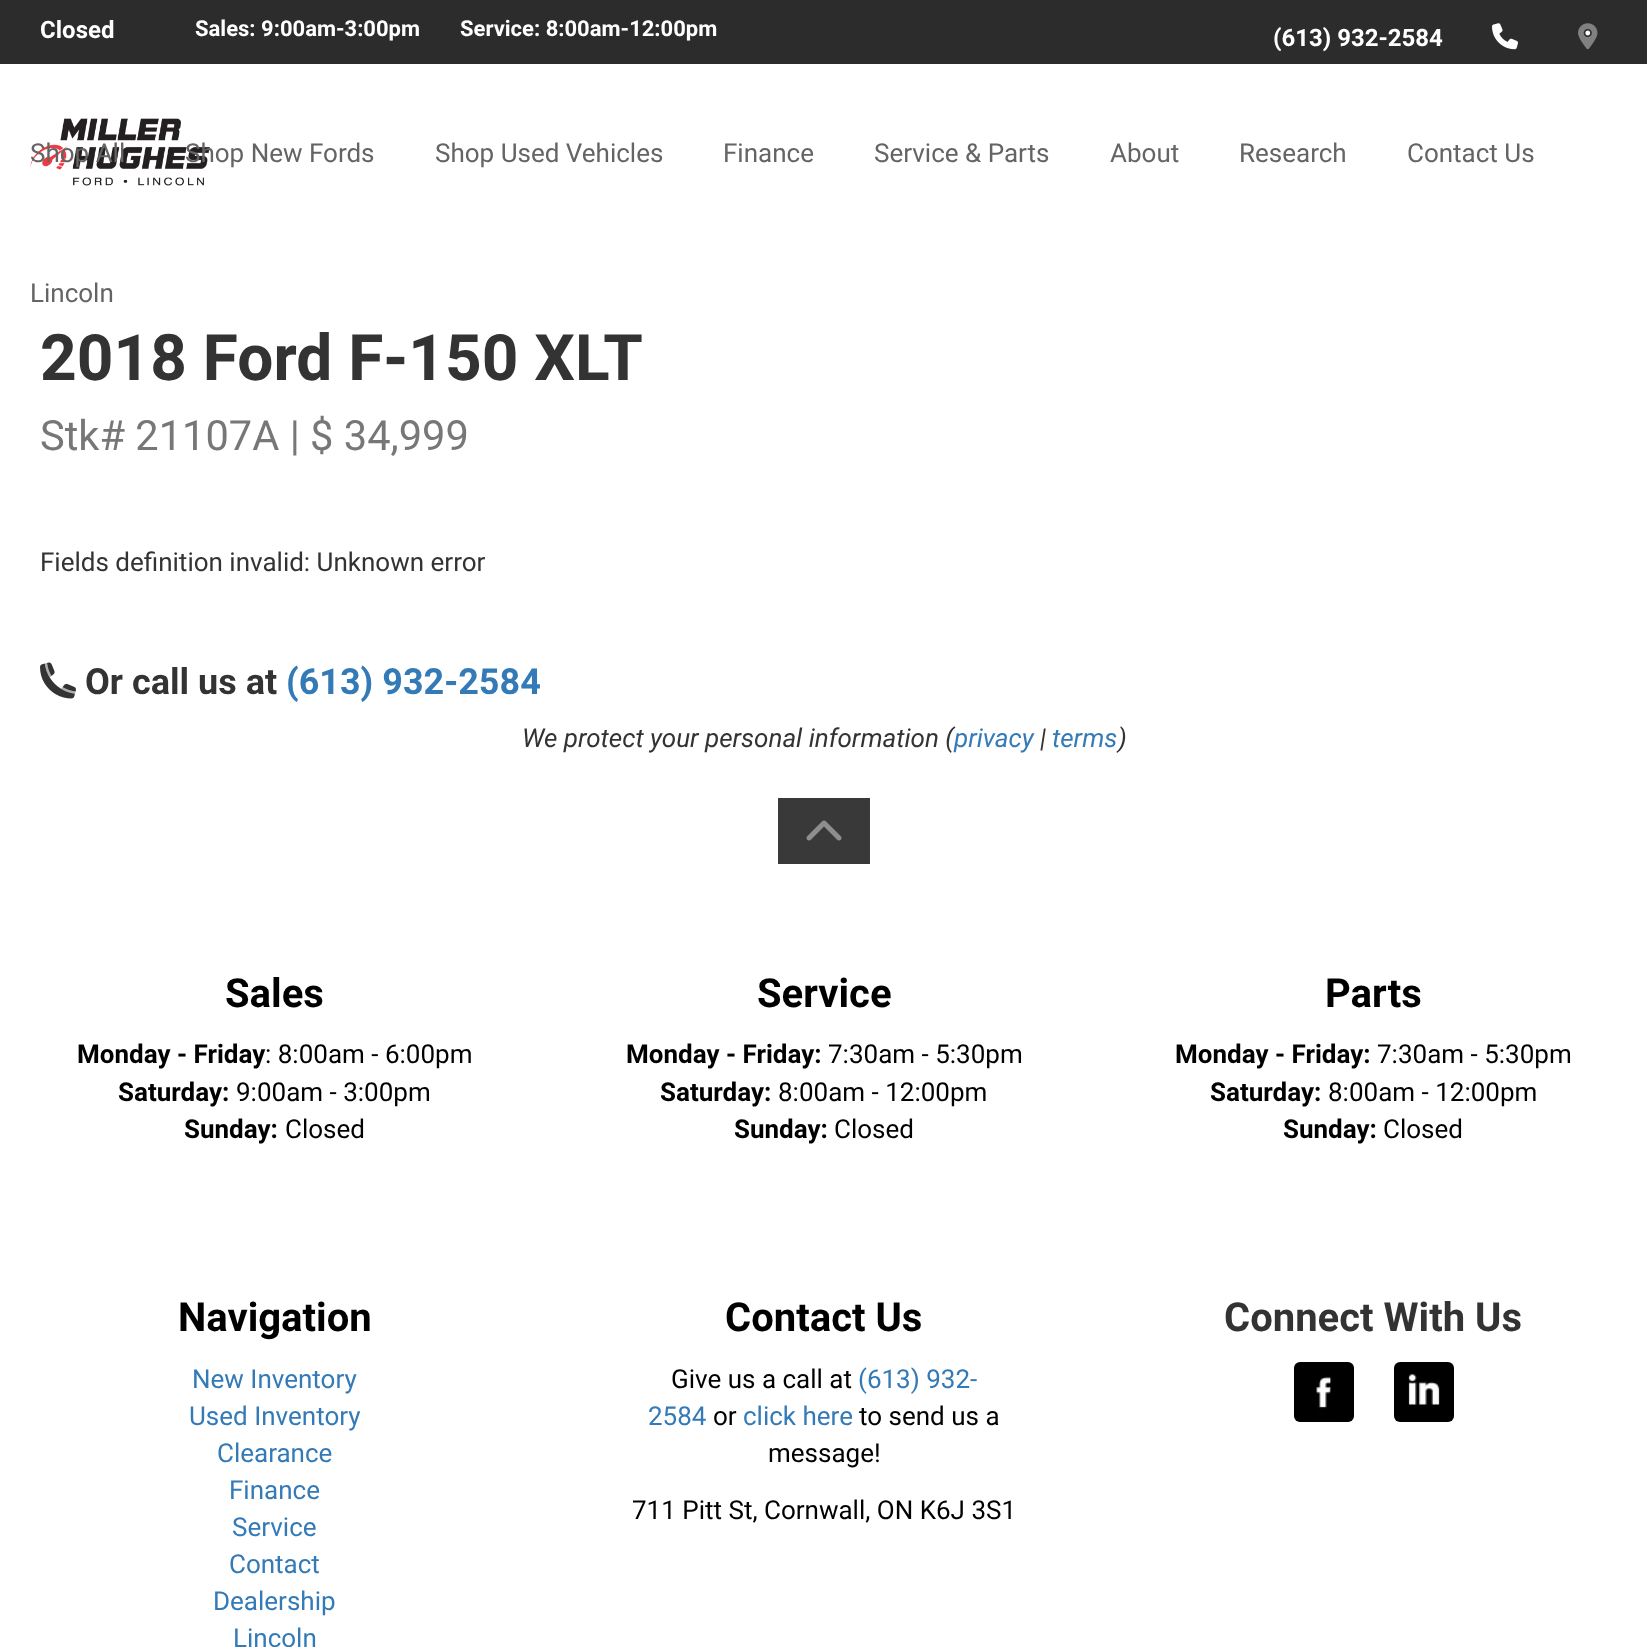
<svg xmlns="http://www.w3.org/2000/svg" width="1647" height="1647">
	<rect width="100%" height="100%" fill="#FFFFFF" />
	<rect x="0" y="0" width="1647" height="64" fill="#2C2C2C" />
	<text x="40" y="38" font-family="Roboto" font-size="24" font-weight="700" fill="#FFFFFF">Closed</text>
	<g font-family="Roboto" font-size="22" font-weight="700" fill="#FFFFFF">
		<text x="195" y="36">Sales: 9:00am-3:00pm</text>
		<text x="460" y="36">Service: 8:00am-12:00pm</text>
	</g>
	<text x="1273" y="46" font-family="Roboto" font-size="24" font-weight="700" fill="#FFFFFF">(613) 932-2584</text>
	<image x="1492" y="23" width="26" height="27" href="assets/img1.png" />
	<image x="1585" y="30" width="6" height="6" href="assets/img3.png" />
	<image x="1578" y="23" width="20" height="27" href="assets/img2.png" />
	<image x="30" y="118" width="180" height="68" href="assets/img4.png" />
	<g font-family="Roboto" font-size="26" fill="#646464">
		<text x="30" y="162">Shop All</text>
		<text x="185" y="162">Shop New Fords</text>
		<text x="435" y="162">Shop Used Vehicles</text>
		<text x="723" y="162">Finance</text>
		<text x="874" y="162">Service &amp; Parts</text>
		<text x="1110" y="162">About</text>
		<text x="1239" y="162">Research</text>
		<text x="1407" y="162">Contact Us</text>
		<text x="30" y="302">Lincoln</text>
	</g>
	<text x="40" y="380" font-family="Roboto" font-size="64" font-weight="700" fill="#333333">2018 Ford F-150 XLT</text>
	<text x="40" y="450" font-family="Roboto" font-size="41.6" fill="#777777">Stk# 21107A | $ 34,999</text>
	<text x="40" y="571" font-family="Roboto" font-size="26" fill="#333333">Fields definition invalid: Unknown error</text>
	<image x="40" y="662" width="36" height="37" href="assets/img5.png" />
	<image x="44" y="663" width="32" height="31" href="assets/img6.png" />
	<text x="85" y="694" font-family="Roboto" font-size="36" font-weight="700" fill="#333333">Or call us at</text>
	<text x="286" y="694" font-family="Roboto" font-size="36" font-weight="700" fill="#337AB7">(613) 932-2584</text>
	<text x="522" y="747" font-family="Roboto" font-size="26" font-style="italic" fill="#333333">We protect your personal information (</text>
	<text x="954" y="747" font-family="Roboto" font-size="26" font-style="italic" fill="#337AB7">privacy</text>
	<text x="1040" y="747" font-family="Roboto" font-size="26" font-style="italic" fill="#333333">|</text>
	<text x="1052" y="747" font-family="Roboto" font-size="26" font-style="italic" fill="#337AB7">terms</text>
	<text x="1118" y="747" font-family="Roboto" font-size="26" font-style="italic" fill="#333333">)</text>
	<rect x="778" y="798" width="92" height="66" fill="#393939" />
	<image x="806" y="820" width="36" height="21" href="assets/img7.png" />
	<text x="225" y="1007" font-family="Roboto" font-size="40" font-weight="700" fill="#000000">Sales</text>
	<text x="77" y="1063" font-family="Roboto" font-size="26" font-weight="700" fill="#000000">Monday - Friday</text>
	<text x="265" y="1063" font-family="Roboto" font-size="26" fill="#000000">: 8:00am - 6:00pm</text>
	<text x="118" y="1101" font-family="Roboto" font-size="26" font-weight="700" fill="#000000">Saturday:</text>
	<text x="236" y="1101" font-family="Roboto" font-size="26" fill="#000000">9:00am - 3:00pm</text>
	<text x="184" y="1138" font-family="Roboto" font-size="26" font-weight="700" fill="#000000">Sunday:</text>
	<text x="285" y="1138" font-family="Roboto" font-size="26" fill="#000000">Closed</text>
	<text x="757" y="1007" font-family="Roboto" font-size="40" font-weight="700" fill="#000000">Service</text>
	<text x="626" y="1063" font-family="Roboto" font-size="26" font-weight="700" fill="#000000">Monday - Friday:</text>
	<text x="828" y="1063" font-family="Roboto" font-size="26" fill="#000000">7:30am - 5:30pm</text>
	<text x="660" y="1101" font-family="Roboto" font-size="26" font-weight="700" fill="#000000">Saturday:</text>
	<text x="778" y="1101" font-family="Roboto" font-size="26" fill="#000000">8:00am - 12:00pm</text>
	<text x="734" y="1138" font-family="Roboto" font-size="26" font-weight="700" fill="#000000">Sunday:</text>
	<text x="834" y="1138" font-family="Roboto" font-size="26" fill="#000000">Closed</text>
	<text x="1325" y="1007" font-family="Roboto" font-size="40" font-weight="700" fill="#000000">Parts</text>
	<text x="1175" y="1063" font-family="Roboto" font-size="26" font-weight="700" fill="#000000">Monday - Friday:</text>
	<text x="1377" y="1063" font-family="Roboto" font-size="26" fill="#000000">7:30am - 5:30pm</text>
	<text x="1210" y="1101" font-family="Roboto" font-size="26" font-weight="700" fill="#000000">Saturday:</text>
	<text x="1328" y="1101" font-family="Roboto" font-size="26" fill="#000000">8:00am - 12:00pm</text>
	<text x="1283" y="1138" font-family="Roboto" font-size="26" font-weight="700" fill="#000000">Sunday:</text>
	<text x="1383" y="1138" font-family="Roboto" font-size="26" fill="#000000">Closed</text>
	<text x="178" y="1331" font-family="Roboto" font-size="40" font-weight="700" fill="#000000">Navigation</text>
	<g font-family="Roboto" font-size="26" fill="#337AB7">
		<text x="192" y="1388">New Inventory</text>
		<text x="189" y="1425">Used Inventory</text>
		<text x="217" y="1462">Clearance</text>
		<text x="229" y="1499">Finance</text>
		<text x="232" y="1536">Service</text>
		<text x="229" y="1573">Contact</text>
		<text x="213" y="1610">Dealership</text>
		<text x="233" y="1647">Lincoln</text>
	</g>
	<text x="725" y="1331" font-family="Roboto" font-size="40" font-weight="700" fill="#000000">Contact Us</text>
	<text x="671" y="1388" font-family="Roboto" font-size="26" fill="#000000">Give us a call at</text>
	<g font-family="Roboto" font-size="26" fill="#337AB7">
		<text x="858" y="1388">(613) 932-</text>
		<text x="648" y="1425">2584</text>
	</g>
	<text x="713" y="1425" font-family="Roboto" font-size="26" fill="#000000">or</text>
	<text x="743" y="1425" font-family="Roboto" font-size="26" fill="#337AB7">click here</text>
	<g font-family="Roboto" font-size="26" fill="#000000">
		<text x="859" y="1425">to send us a</text>
		<text x="768" y="1462">message!</text>
		<text x="632" y="1519">711 Pitt St, Cornwall, ON K6J 3S1</text>
	</g>
	<text x="1224" y="1331" font-family="Roboto" font-size="40" font-weight="700" fill="#333333">Connect With Us</text>
	<image x="1294" y="1362" width="60" height="60" href="assets/img8.png" />
	<image x="1394" y="1362" width="60" height="60" href="assets/img9.png" />
</svg>
